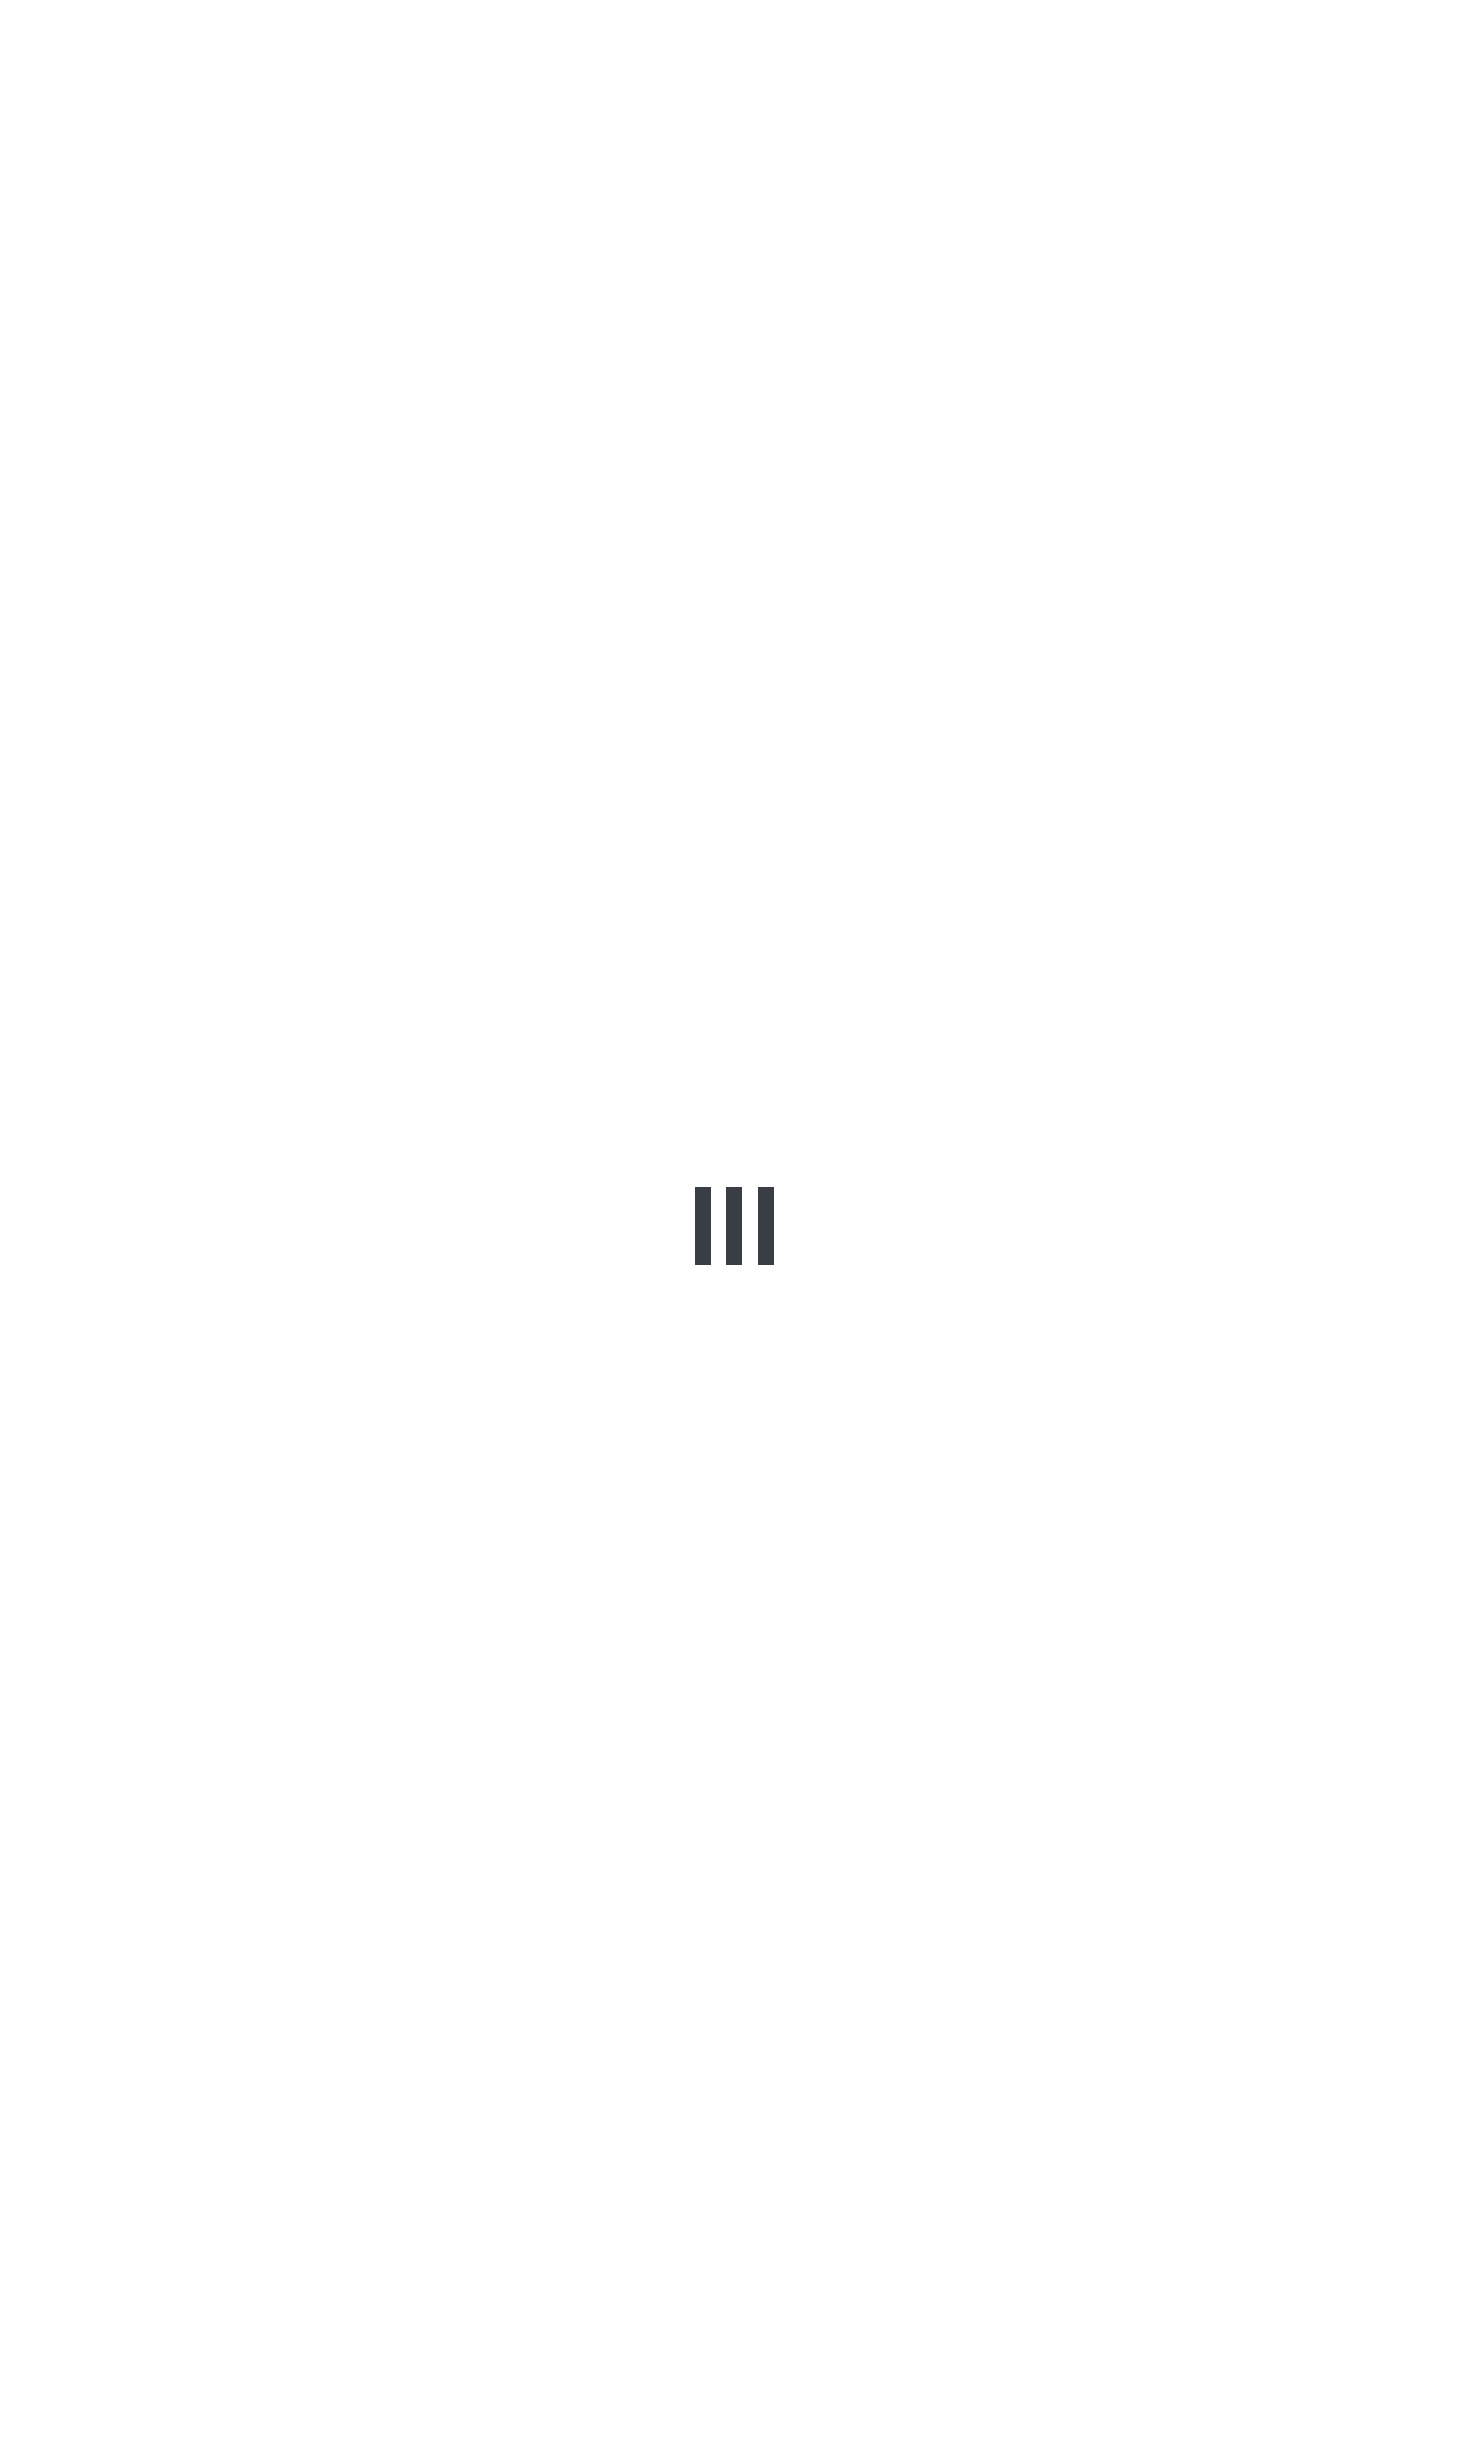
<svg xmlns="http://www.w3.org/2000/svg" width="1467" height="2450">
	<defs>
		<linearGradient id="g1" gradientUnits="userSpaceOnUse" x1="766" y1="1073" x2="766" y2="1265"><stop offset="0.41" stop-color="#3E64FF" /><stop offset="0.41" stop-color="#FFFFFF" /><stop offset="0.59" stop-color="#FFFFFF" /><stop offset="0.59" stop-color="#393E46" /></linearGradient>
		<linearGradient id="g2" gradientUnits="userSpaceOnUse" x1="734" y1="1073" x2="734" y2="1265"><stop offset="0.41" stop-color="#3E64FF" /><stop offset="0.41" stop-color="#FFFFFF" /><stop offset="0.59" stop-color="#FFFFFF" /><stop offset="0.59" stop-color="#393E46" /></linearGradient>
		<linearGradient id="g3" gradientUnits="userSpaceOnUse" x1="703" y1="1073" x2="703" y2="1265"><stop offset="0.41" stop-color="#3E64FF" /><stop offset="0.41" stop-color="#FFFFFF" /><stop offset="0.59" stop-color="#FFFFFF" /><stop offset="0.59" stop-color="#393E46" /></linearGradient>
	</defs>
	<rect width="100%" height="100%" fill="#FFFFFF" />
	<rect x="758" y="1187" width="16" height="78" fill="url(#g1)" />
	<rect x="726" y="1187" width="16" height="78" fill="url(#g2)" />
	<rect x="695" y="1187" width="16" height="78" fill="url(#g3)" />
</svg>
